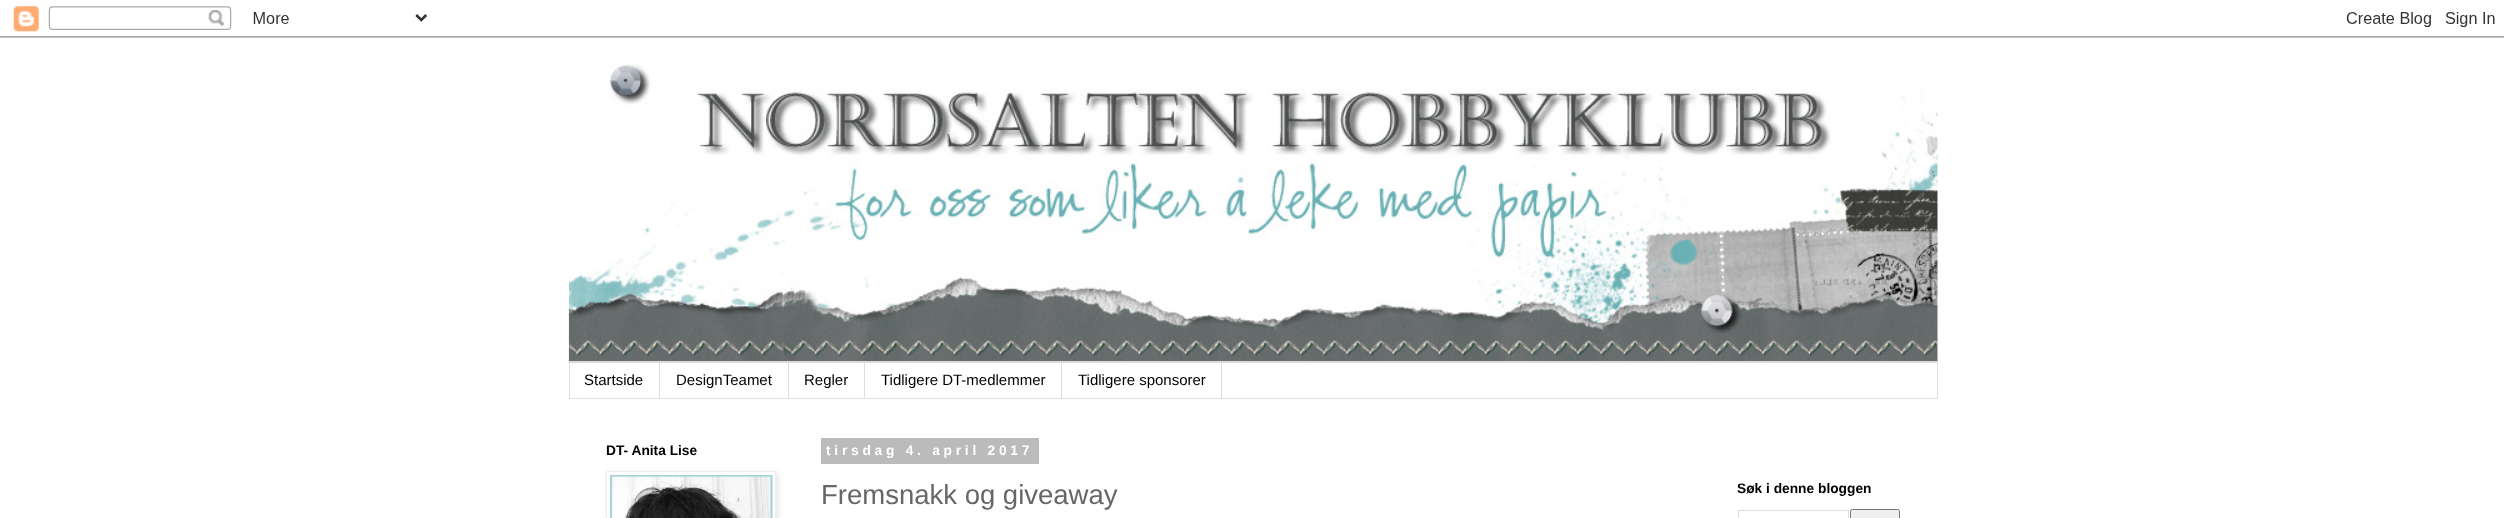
<svg xmlns="http://www.w3.org/2000/svg" width="2504" height="518">
	<rect width="100%" height="100%" fill="#FFFFFF" />
	<image x="0" y="6" width="2504" height="32" href="assets/img1.png" />
	<image x="568" y="64" width="1370" height="299" href="assets/img2.png" />
	<rect x="569.5" y="361.5" width="1368" height="37" fill="none" stroke="#DDDDDD" />
	<rect x="659" y="363" width="1" height="35" fill="#DDDDDD" />
	<text x="584" y="385" font-family="Liberation Sans" font-size="15" fill="#000000">Startside</text>
	<rect x="788" y="363" width="1" height="35" fill="#DDDDDD" />
	<text x="676" y="385" font-family="Liberation Sans" font-size="15" fill="#000000">DesignTeamet</text>
	<rect x="864" y="363" width="1" height="35" fill="#DDDDDD" />
	<text x="804" y="385" font-family="Liberation Sans" font-size="15" fill="#000000">Regler</text>
	<rect x="1061" y="363" width="1" height="35" fill="#DDDDDD" />
	<text x="881" y="385" font-family="Liberation Sans" font-size="15" fill="#000000">Tidligere DT-medlemmer</text>
	<rect x="1221" y="363" width="1" height="35" fill="#DDDDDD" />
	<text x="1078" y="385" font-family="Liberation Sans" font-size="15" fill="#000000">Tidligere sponsorer</text>
	<text x="606" y="455" font-family="Liberation Sans" font-size="13.75" font-weight="700" fill="#000000">DT- Anita Lise</text>
	<rect x="608" y="473" width="170" height="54" fill="#000000" fill-opacity="0.1" filter="blur(3px)" />
	<rect x="606.5" y="471.5" width="169" height="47" fill="#FFFFFF" stroke="#EEEEEE" />
	<image x="610" y="475" width="163" height="43" href="assets/img3.png" />
	<rect x="821" y="438" width="218" height="26" fill="#BBBBBB" />
	<text x="826" y="455" font-family="Liberation Sans" font-size="13.75" font-weight="700" letter-spacing="3.75" fill="#FFFFFF">tirsdag 4. april 2017</text>
	<text x="821" y="504" font-family="Liberation Sans" font-size="27.5" fill="#666666">Fremsnakk og giveaway</text>
	<text x="1737" y="493" font-family="Liberation Sans" font-size="13.75" font-weight="700" fill="#000000">Søk i denne bloggen</text>
	<rect x="1738.5" y="510.5" width="110" height="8" fill="none" stroke="#DDDDDD" />
	<rect x="1850.5" y="509.5" width="49" height="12" rx="2" fill="#EFEFEF" stroke="#767676" />
</svg>
